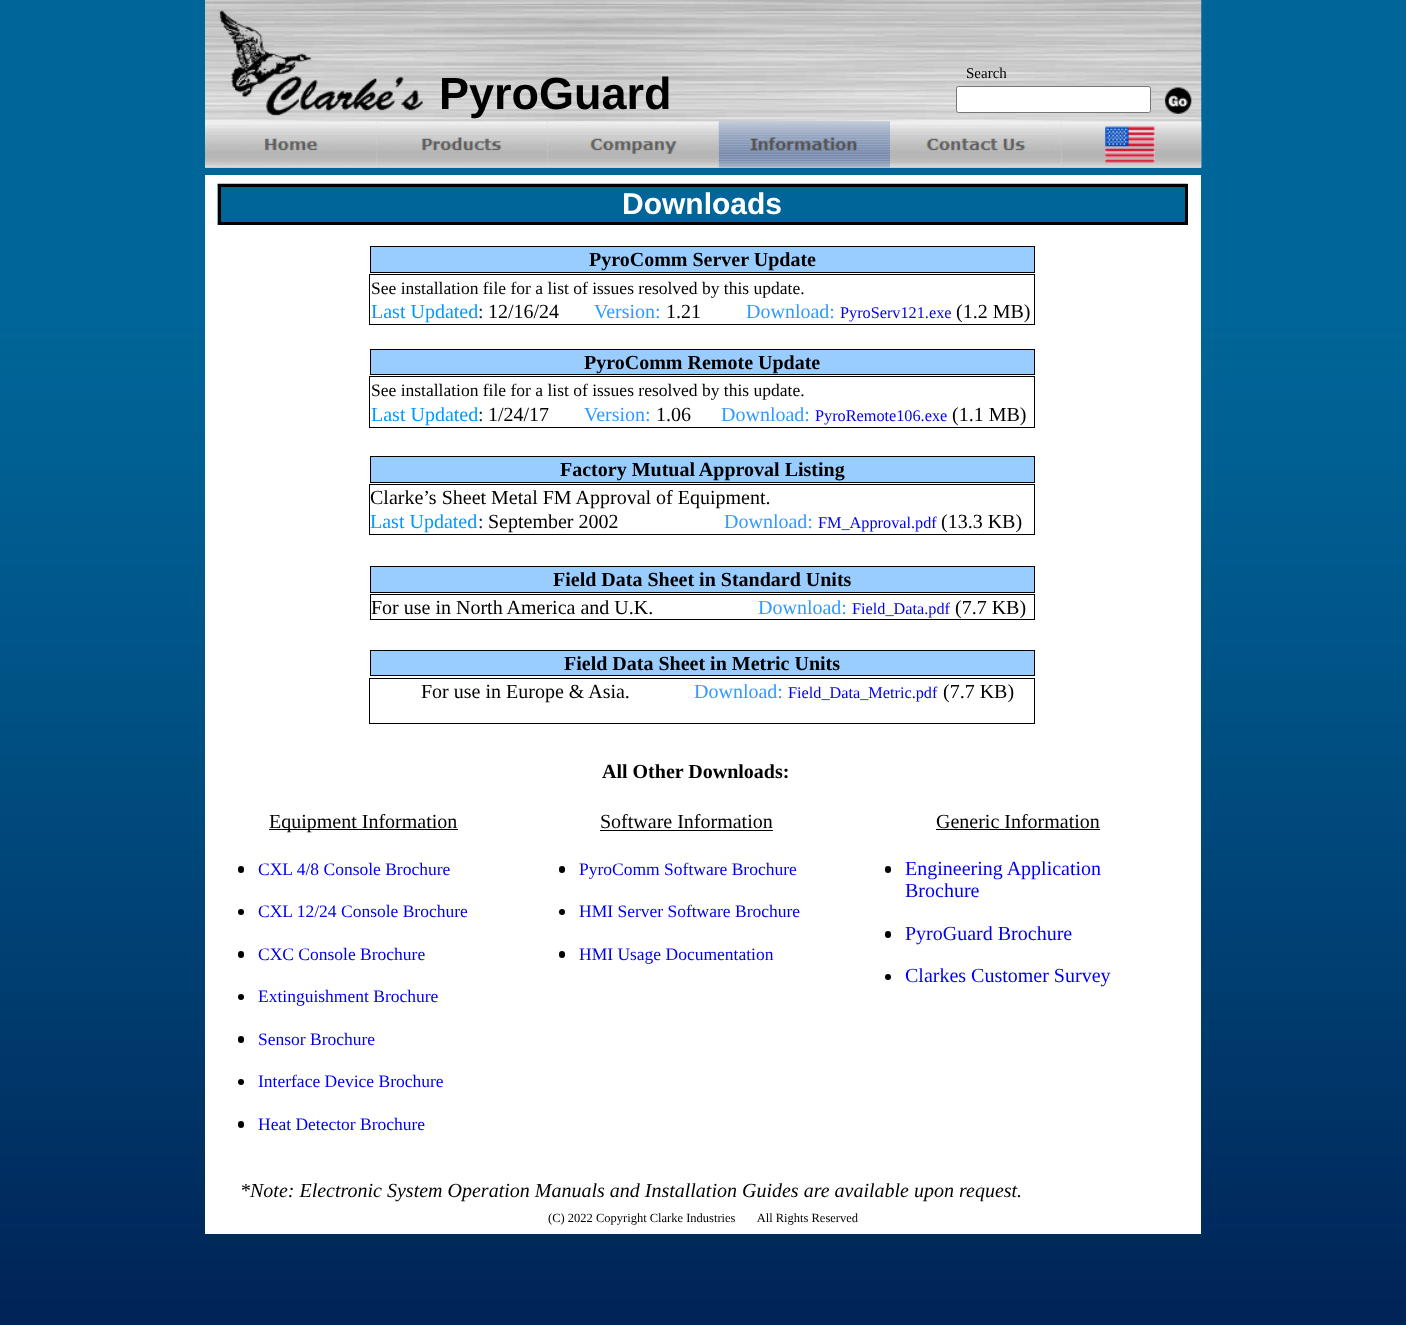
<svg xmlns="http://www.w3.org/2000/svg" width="1406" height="1325">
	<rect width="100%" height="100%" fill="#FFFFFF" />
	<image x="0" y="0" width="1406" height="1325" href="assets/img1.png" />
	<rect x="205" y="167" width="996" height="1" fill="#AA9F7F" />
	<image x="205" y="0" width="997" height="168" href="assets/img2.png" />
	<image x="214" y="1" width="212" height="118" href="assets/img3.png" />
	<text x="966" y="78" font-family="Liberation Serif" font-size="15" fill="#000000">Search</text>
	<rect x="956.5" y="86.5" width="194" height="26" rx="2" fill="#FFFFFF" stroke="#767676" />
	<image x="1164" y="87" width="28" height="27" href="assets/img4.png" />
	<text x="439" y="109" font-family="Liberation Sans" font-size="45" font-weight="700" fill="#000000">PyroGuard</text>
	<image x="205" y="121" width="172" height="47" href="assets/img5.png" />
	<image x="376" y="121" width="172" height="47" href="assets/img6.png" />
	<image x="547" y="121" width="172" height="47" href="assets/img7.png" />
	<image x="718" y="121" width="172" height="47" href="assets/img8.png" />
	<image x="890" y="121" width="171" height="47" href="assets/img9.png" />
	<image x="1061" y="121" width="141" height="47" href="assets/img10.png" />
	<image x="1105" y="126" width="50" height="37" href="assets/img11.png" />
	<rect x="205" y="175" width="996" height="1059" fill="#FFFFFF" />
	<image x="217" y="183" width="971" height="42" href="assets/img12.png" />
	<rect x="219.5" y="185.5" width="967" height="38" fill="none" stroke="#000000" stroke-width="3" />
	<text x="622" y="214" font-family="Liberation Sans" font-size="30" font-weight="700" fill="#FFFFFF">Downloads</text>
	<rect x="370.5" y="246.5" width="664" height="26" fill="#99CCFF" stroke="#000000" />
	<text x="589" y="266" font-family="Liberation Serif" font-size="20" font-weight="700" fill="#000000">PyroComm Server Update</text>
	<rect x="369.5" y="274.5" width="665" height="50" fill="none" stroke="#000000" />
	<text x="371" y="294" font-family="Liberation Serif" font-size="17.5" fill="#000000">See installation file for a list of issues resolved by this update.</text>
	<text x="371" y="318" font-family="Liberation Serif" font-size="20" fill="#0099FF">Last Updated</text>
	<text x="478" y="318" font-family="Liberation Serif" font-size="20" fill="#003366">:</text>
	<text x="488" y="318" font-family="Liberation Serif" font-size="20" fill="#000000">12/16/24</text>
	<text x="594" y="318" font-family="Liberation Serif" font-size="20" fill="#3399FF">Version:</text>
	<text x="666" y="318" font-family="Liberation Serif" font-size="20" fill="#000000">1.21</text>
	<text x="746" y="318" font-family="Liberation Serif" font-size="20" fill="#3399FF">Download:</text>
	<text x="840" y="318" font-family="Liberation Serif" font-size="16.25" fill="#0000EE">PyroServ121.exe</text>
	<text x="956" y="318" font-family="Liberation Serif" font-size="20" fill="#000000">(1.2 MB)</text>
	<rect x="370.5" y="349.5" width="664" height="25" fill="#99CCFF" stroke="#000000" />
	<text x="584" y="369" font-family="Liberation Serif" font-size="20" font-weight="700" fill="#000000">PyroComm Remote Update</text>
	<rect x="369.5" y="376.5" width="665" height="51" fill="none" stroke="#000000" />
	<text x="371" y="396" font-family="Liberation Serif" font-size="17.5" fill="#000000">See installation file for a list of issues resolved by this update.</text>
	<text x="371" y="421" font-family="Liberation Serif" font-size="20" fill="#0099FF">Last Updated</text>
	<text x="478" y="421" font-family="Liberation Serif" font-size="20" fill="#003366">:</text>
	<text x="488" y="421" font-family="Liberation Serif" font-size="20" fill="#000000">1/24/17</text>
	<text x="584" y="421" font-family="Liberation Serif" font-size="20" fill="#3399FF">Version:</text>
	<text x="656" y="421" font-family="Liberation Serif" font-size="20" fill="#000000">1.06</text>
	<text x="721" y="421" font-family="Liberation Serif" font-size="20" fill="#3399FF">Download:</text>
	<text x="815" y="421" font-family="Liberation Serif" font-size="16.25" fill="#0000EE">PyroRemote106.exe</text>
	<text x="952" y="421" font-family="Liberation Serif" font-size="20" fill="#000000">(1.1 MB)</text>
	<rect x="370.5" y="456.5" width="664" height="26" fill="#99CCFF" stroke="#000000" />
	<text x="560" y="476" font-family="Liberation Serif" font-size="20" font-weight="700" fill="#000000">Factory Mutual Approval Listing</text>
	<rect x="369.5" y="484.5" width="665" height="50" fill="none" stroke="#000000" />
	<text x="370" y="504" font-family="Liberation Serif" font-size="20" fill="#000000">Clarke’s Sheet Metal FM Approval of Equipment.</text>
	<text x="370" y="528" font-family="Liberation Serif" font-size="20" fill="#0099FF">Last Updated</text>
	<text x="478" y="528" font-family="Liberation Serif" font-size="20" fill="#003366">:</text>
	<text x="488" y="528" font-family="Liberation Serif" font-size="20" fill="#000000">September 2002</text>
	<text x="724" y="528" font-family="Liberation Serif" font-size="20" fill="#3399FF">Download:</text>
	<text x="818" y="528" font-family="Liberation Serif" font-size="16.25" fill="#0000EE">FM_Approval.pdf</text>
	<text x="941" y="528" font-family="Liberation Serif" font-size="20" fill="#000000">(13.3 KB)</text>
	<rect x="370.5" y="566.5" width="664" height="26" fill="#99CCFF" stroke="#000000" />
	<text x="553" y="586" font-family="Liberation Serif" font-size="20" font-weight="700" fill="#000000">Field Data Sheet in Standard Units</text>
	<rect x="370.5" y="594.5" width="664" height="25" fill="none" stroke="#000000" />
	<text x="371" y="614" font-family="Liberation Serif" font-size="20" fill="#000000">For use in North America and U.K.</text>
	<text x="758" y="614" font-family="Liberation Serif" font-size="20" fill="#3399FF">Download:</text>
	<text x="852" y="614" font-family="Liberation Serif" font-size="16.25" fill="#0000EE">Field_Data.pdf</text>
	<text x="955" y="614" font-family="Liberation Serif" font-size="20" fill="#000000">(7.7 KB)</text>
	<rect x="370.5" y="650.5" width="664" height="25" fill="#99CCFF" stroke="#000000" />
	<text x="564" y="670" font-family="Liberation Serif" font-size="20" font-weight="700" fill="#000000">Field Data Sheet in Metric Units</text>
	<rect x="369.5" y="678.5" width="665" height="45" fill="none" stroke="#000000" />
	<text x="421" y="698" font-family="Liberation Serif" font-size="20" fill="#000000">For use in Europe &amp; Asia.</text>
	<text x="694" y="698" font-family="Liberation Serif" font-size="20" fill="#3399FF">Download:</text>
	<text x="788" y="698" font-family="Liberation Serif" font-size="16.25" fill="#0000EE">Field_Data_Metric.pdf</text>
	<text x="943" y="698" font-family="Liberation Serif" font-size="20" fill="#000000">(7.7 KB)</text>
	<rect x="269" y="829" width="189" height="1" fill="#000000" />
	<text x="269" y="828" font-family="Liberation Serif" font-size="20" fill="#000000">Equipment Information</text>
	<rect x="238" y="866" width="6" height="7" rx="3" fill="#000000" />
	<text x="258" y="875" font-family="Liberation Serif" font-size="17.5" fill="#0000EE">CXL 4/8 Console Brochure</text>
	<circle cx="241" cy="912" r="3" fill="#000000" />
	<text x="258" y="917" font-family="Liberation Serif" font-size="17.5" fill="#0000EE">CXL 12/24 Console Brochure</text>
	<rect x="238" y="951" width="6" height="7" rx="3" fill="#000000" />
	<text x="258" y="960" font-family="Liberation Serif" font-size="17.5" fill="#0000EE">CXC Console Brochure</text>
	<circle cx="241" cy="997" r="3" fill="#000000" />
	<text x="258" y="1002" font-family="Liberation Serif" font-size="17.5" fill="#0000EE">Extinguishment Brochure</text>
	<rect x="238" y="1036" width="6" height="7" rx="3" fill="#000000" />
	<text x="258" y="1045" font-family="Liberation Serif" font-size="17.5" fill="#0000EE">Sensor Brochure</text>
	<circle cx="241" cy="1082" r="3" fill="#000000" />
	<text x="258" y="1087" font-family="Liberation Serif" font-size="17.5" fill="#0000EE">Interface Device Brochure</text>
	<rect x="238" y="1121" width="6" height="7" rx="3" fill="#000000" />
	<text x="258" y="1130" font-family="Liberation Serif" font-size="17.5" fill="#0000EE">Heat Detector Brochure</text>
	<text x="602" y="778" font-family="Liberation Serif" font-size="20" font-weight="700" fill="#000000">All Other Downloads:</text>
	<text x="600" y="828" font-family="Liberation Serif" font-size="20" fill="#000000">Software Information</text>
	<rect x="600" y="830" width="173" height="1" fill="#000000" />
	<rect x="559" y="866" width="6" height="7" rx="3" fill="#000000" />
	<text x="579" y="875" font-family="Liberation Serif" font-size="17.5" fill="#0000EE">PyroComm Software Brochure</text>
	<circle cx="562" cy="912" r="3" fill="#000000" />
	<text x="579" y="917" font-family="Liberation Serif" font-size="17.5" fill="#0000EE">HMI Server Software Brochure</text>
	<rect x="559" y="951" width="6" height="7" rx="3" fill="#000000" />
	<text x="579" y="960" font-family="Liberation Serif" font-size="17.5" fill="#0000EE">HMI Usage Documentation</text>
	<text x="936" y="828" font-family="Liberation Serif" font-size="20" fill="#000000">Generic Information</text>
	<rect x="936" y="829" width="164" height="1" fill="#000000" />
	<rect x="885" y="866" width="6" height="7" rx="3" fill="#000000" />
	<g font-family="Liberation Serif" font-size="20" fill="#0000EE">
		<text x="905" y="875">Engineering Application</text>
		<text x="905" y="897">Brochure</text>
	</g>
	<rect x="885" y="931" width="6" height="7" rx="3" fill="#000000" />
	<text x="905" y="940" font-family="Liberation Serif" font-size="20" fill="#0000EE">PyroGuard Brochure</text>
	<circle cx="888" cy="977" r="3" fill="#000000" />
	<text x="905" y="982" font-family="Liberation Serif" font-size="20" fill="#0000EE">Clarkes Customer Survey</text>
	<text x="240" y="1197" font-family="Liberation Serif" font-size="20" font-style="italic" fill="#000000">*Note: Electronic System Operation Manuals and Installation Guides are available upon request.</text>
	<text x="548" y="1222" font-family="Liberation Serif" font-size="12.5" fill="#000000" xml:space="preserve">(C) 2022 Copyright Clarke Industries       All Rights Reserved</text>
</svg>
